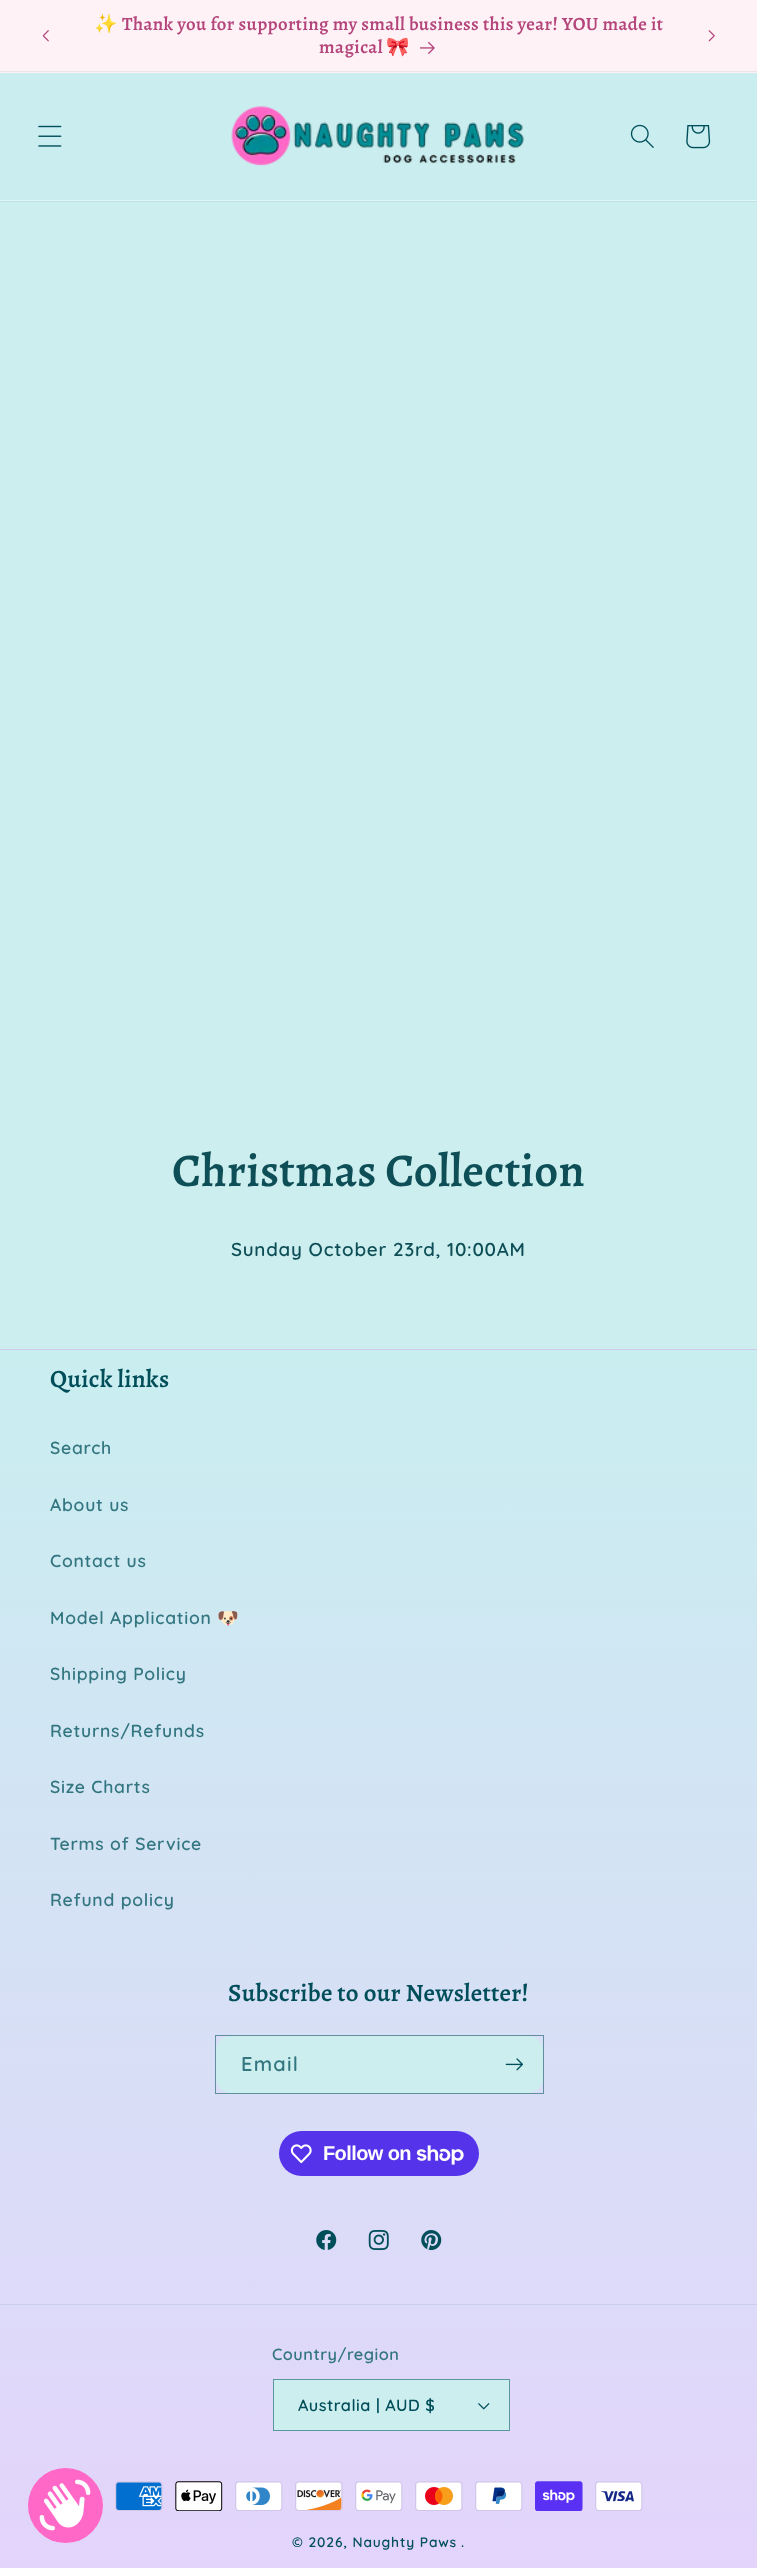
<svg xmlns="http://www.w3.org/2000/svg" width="757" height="2568">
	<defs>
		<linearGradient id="g1" gradientUnits="userSpaceOnUse" x1="379" y1="1350" x2="379" y2="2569"><stop offset="0" stop-color="#C9EEF0" /><stop offset="1" stop-color="#E3D4FB" /></linearGradient>
	</defs>
	<rect width="100%" height="100%" fill="#CDEEEF" />
	<rect x="0" y="0" width="757" height="73" fill="#FFF2F7" />
	<rect x="0" y="71" width="757" height="1" fill="#EBE5EA" />
	<image x="42" y="30" width="7" height="12" href="assets/img1.png" />
	<text x="94" y="30" font-family="Noto Color Emoji" font-size="18.75" font-weight="700" letter-spacing="0.38" fill="#B4457A">✨</text>
	<g font-family="Alegreya" font-size="18.75" font-weight="600" letter-spacing="0.38" fill="#B4457A">
		<text x="122" y="30">Thank you for supporting my small business this year! YOU made it</text>
		<text x="319" y="53">magical</text>
	</g>
	<text x="386" y="53" font-family="Noto Color Emoji" font-size="18.75" font-weight="700" letter-spacing="0.38" fill="#B4457A">🎀</text>
	<image x="420" y="41" width="15" height="13" href="assets/img2.png" />
	<image x="708" y="30" width="7" height="12" href="assets/img3.png" />
	<rect x="0" y="201" width="757" height="1" fill="#BDE1E3" />
	<rect x="0" y="73" width="757" height="127" fill="#CAEEF0" />
	<rect x="0" y="200" width="757" height="1" fill="#DFF5F6" />
	<image x="38" y="125" width="24" height="22" href="assets/img4.png" />
	<image x="231" y="106" width="293" height="60" href="assets/img5.png" />
	<image x="630" y="124" width="24" height="24" href="assets/img6.png" />
	<image x="686" y="125" width="25" height="24" href="assets/img7.png" />
	<text x="172" y="1186" font-family="Alegreya" font-size="46.9" font-weight="600" letter-spacing="0.25" fill="#0E4F57">Christmas Collection</text>
	<text x="231" y="1256" font-family="Quicksand" font-size="18.75" font-weight="600" letter-spacing="0.75" fill="#0E4F57">Sunday October 23rd, 10:00AM</text>
	<rect x="0" y="1350" width="757" height="1218" fill="url(#g1)" />
	<rect x="0" y="1349" width="757" height="1" fill="#D1C9EE" />
	<text x="50" y="1387" font-family="Alegreya" font-size="25" font-weight="600" letter-spacing="0.25" fill="#004E5A">Quick links</text>
	<g font-family="Quicksand" font-size="17.5" font-weight="600" letter-spacing="0.75" fill="#337680">
		<text x="50" y="1454">Search</text>
		<text x="50" y="1511">About us</text>
		<text x="50" y="1567">Contact us</text>
		<text x="50" y="1624">Model Application</text>
	</g>
	<text x="217" y="1624" font-family="Noto Color Emoji" font-size="17.5" font-weight="700" letter-spacing="0.75" fill="#337680">🐶</text>
	<g font-family="Quicksand" font-size="17.5" font-weight="600" letter-spacing="0.75" fill="#337680">
		<text x="50" y="1680">Shipping Policy</text>
		<text x="50" y="1737">Returns/Refunds</text>
		<text x="50" y="1793">Size Charts</text>
		<text x="50" y="1850">Terms of Service</text>
		<text x="50" y="1906">Refund policy</text>
	</g>
	<text x="228" y="2001" font-family="Alegreya" font-size="25" font-weight="600" letter-spacing="0.25" fill="#004E5A">Subscribe to our Newsletter!</text>
	<rect x="216" y="2036" width="327" height="57" rx="15" fill="#CDEEEF" />
	<rect x="215.5" y="2035.5" width="328" height="58" fill="none" stroke="#618FA0" />
	<text x="241" y="2071" font-family="Quicksand" font-size="20" font-weight="600" letter-spacing="1.25" fill="#337680">Email</text>
	<image x="505" y="2058" width="18" height="13" href="assets/img8.png" />
	<rect x="279" y="2131" width="200" height="45" rx="22.5" fill="#5433EB" />
	<image x="290" y="2144" width="22" height="20" href="assets/img9.png" />
	<text x="323" y="2160" font-family="Liberation Sans" font-size="20" font-weight="700" letter-spacing="-0.6" fill="#FFFFFF">Follow on</text>
	<image x="416" y="2145" width="48" height="20" href="assets/img10.png" />
	<image x="316" y="2230" width="21" height="20" href="assets/img11.png" />
	<image x="368" y="2230" width="21" height="20" href="assets/img12.png" />
	<image x="421" y="2230" width="21" height="21" href="assets/img13.png" />
	<rect x="0" y="2304" width="757" height="1" fill="#CBCFEC" />
	<text x="272" y="2360" font-family="Quicksand" font-size="16.25" font-weight="600" letter-spacing="0.5" fill="#337680">Country/region</text>
	<rect x="274" y="2380" width="235" height="50" fill="#CDEEEF" />
	<image x="478" y="2403" width="12" height="7" href="assets/img14.png" />
	<rect x="273.5" y="2379.5" width="236" height="51" fill="none" stroke="#5C969D" />
	<text x="298" y="2411" font-family="Quicksand" font-size="16.25" font-weight="600" letter-spacing="0.5" fill="#004E5A">Australia | AUD $</text>
	<image x="115" y="2481" width="48" height="30" href="assets/img15.png" />
	<image x="175" y="2481" width="48" height="30" href="assets/img16.png" />
	<image x="235" y="2481" width="48" height="30" href="assets/img17.png" />
	<image x="295" y="2481" width="48" height="30" href="assets/img18.png" />
	<image x="355" y="2481" width="48" height="30" href="assets/img19.png" />
	<image x="415" y="2481" width="48" height="30" href="assets/img20.png" />
	<image x="475" y="2481" width="48" height="30" href="assets/img21.png" />
	<image x="535" y="2481" width="48" height="30" href="assets/img22.png" />
	<image x="595" y="2481" width="48" height="30" href="assets/img23.png" />
	<g font-family="Quicksand" font-size="13.75" font-weight="600" letter-spacing="0.9" fill="#004E5A">
		<text x="292" y="2547">© 2026, Naughty Paws</text>
		<text x="461" y="2547">.</text>
	</g>
	<circle cx="65.5" cy="2505.5" r="37.5" fill="#FF68C7" />
	<image x="39" y="2479" width="52" height="52" href="assets/img24.png" />
</svg>
